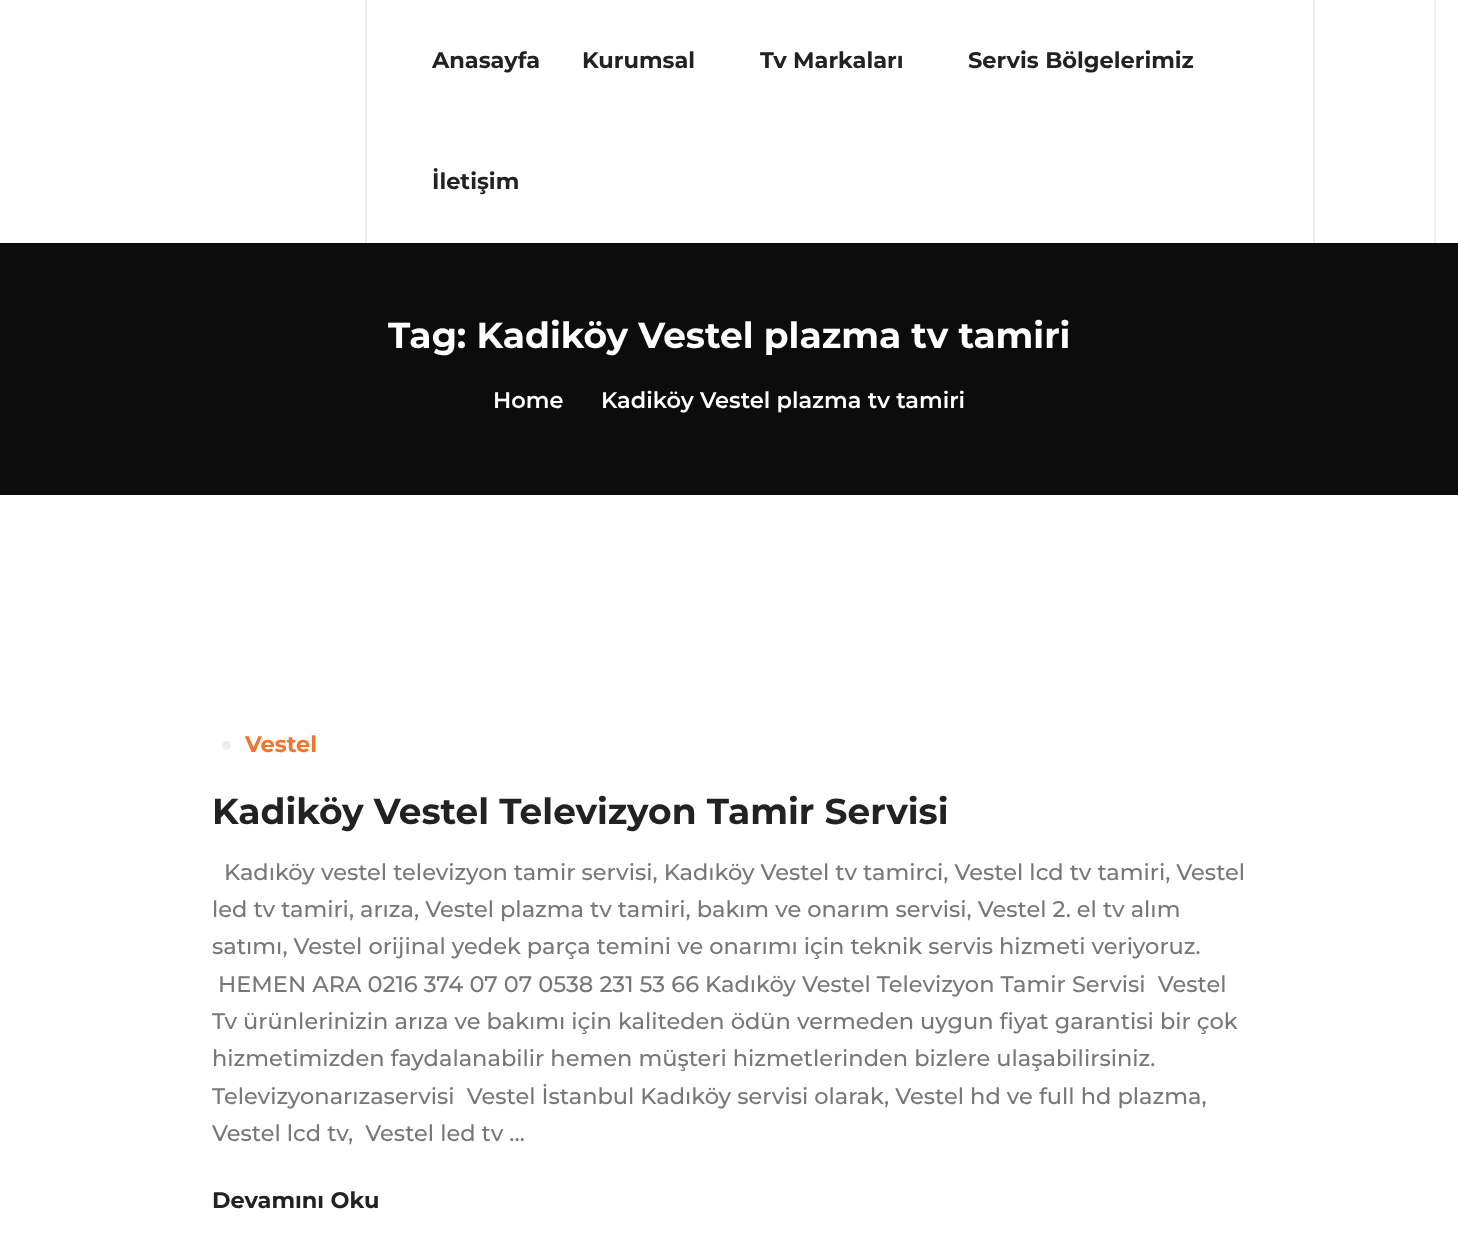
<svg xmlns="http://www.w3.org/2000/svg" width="1458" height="1245">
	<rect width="100%" height="100%" fill="#FFFFFF" />
	<rect x="365" y="0" width="2" height="243" fill="#EEEEEE" />
	<g font-family="Montserrat" font-size="22.5" font-weight="700" fill="#222222">
		<text x="432" y="68">Anasayfa</text>
		<text x="582" y="68">Kurumsal</text>
		<text x="760" y="68">Tv Markaları</text>
		<text x="968" y="68">Servis Bölgelerimiz</text>
		<text x="432" y="189">İletişim</text>
	</g>
	<rect x="1434" y="0" width="2" height="243" fill="#EEEEEE" />
	<rect x="1313" y="0" width="2" height="243" fill="#EEEEEE" />
	<rect x="0" y="243" width="1458" height="252" fill="#0C0C0C" />
	<text x="388" y="348" font-family="Montserrat" font-size="36" font-weight="700" fill="#FFFFFF">Tag: Kadiköy Vestel plazma tv tamiri</text>
	<g font-family="Montserrat" font-size="22.5" font-weight="600" fill="#FFFFFF">
		<text x="493" y="408">Home</text>
		<text x="601" y="408">Kadiköy Vestel plazma tv tamiri</text>
	</g>
	<circle cx="226.5" cy="745.5" r="4.5" fill="#EEEEEE" />
	<text x="245" y="752" font-family="Montserrat" font-size="22.5" font-weight="700" fill="#F6732E">Vestel</text>
	<text x="212" y="824" font-family="Montserrat" font-size="36" font-weight="700" fill="#222222">Kadiköy Vestel Televizyon Tamir Servisi</text>
	<g font-family="Montserrat" font-size="22.5" font-weight="500" fill="#777777">
		<text x="224" y="880">Kadıköy vestel televizyon tamir servisi, Kadıköy Vestel tv tamirci, Vestel lcd tv tamiri, Vestel</text>
		<text x="212" y="917">led tv tamiri, arıza, Vestel plazma tv tamiri, bakım ve onarım servisi, Vestel 2. el tv alım</text>
		<text x="212" y="954">satımı, Vestel orijinal yedek parça temini ve onarımı için teknik servis hizmeti veriyoruz.</text>
		<text x="218" y="992" xml:space="preserve">HEMEN ARA 0216 374 07 07 0538 231 53 66 Kadıköy Vestel Televizyon Tamir Servisi  Vestel</text>
		<text x="212" y="1029">Tv ürünlerinizin arıza ve bakımı için kaliteden ödün vermeden uygun fiyat garantisi bir çok</text>
		<text x="212" y="1066">hizmetimizden faydalanabilir hemen müşteri hizmetlerinden bizlere ulaşabilirsiniz.</text>
		<text x="212" y="1104" xml:space="preserve">Televizyonarızaservisi  Vestel İstanbul Kadıköy servisi olarak, Vestel hd ve full hd plazma,</text>
		<text x="212" y="1141" xml:space="preserve">Vestel lcd tv,  Vestel led tv …</text>
	</g>
	<text x="212" y="1208" font-family="Montserrat" font-size="22.5" font-weight="700" fill="#222222">Devamını Oku</text>
</svg>
